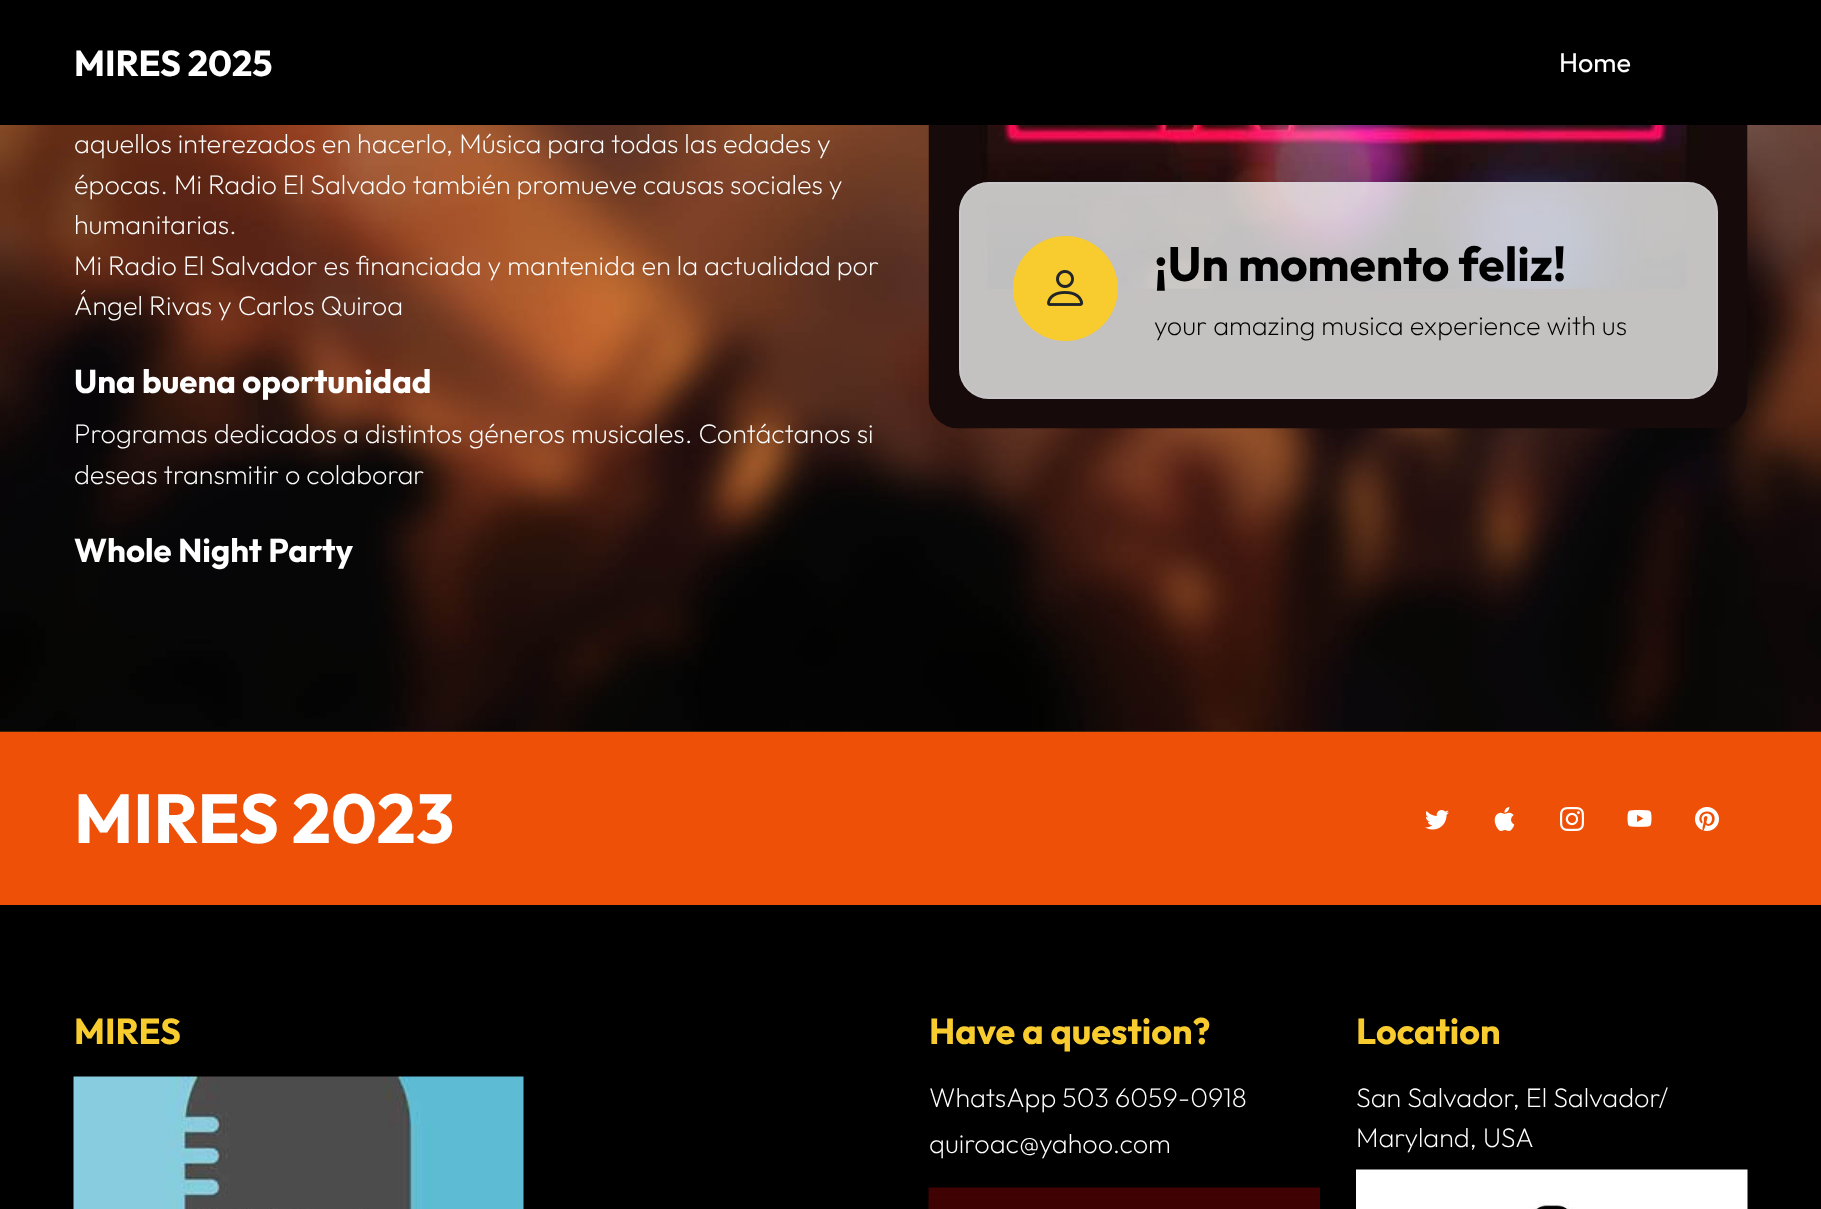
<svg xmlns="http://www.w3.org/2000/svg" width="1821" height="1209">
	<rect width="100%" height="100%" fill="#704010" />
	<rect x="0" y="0" width="1821" height="125" fill="#000000" />
	<text x="74" y="76" font-family="Outfit" font-size="36" font-weight="700" fill="#FFFFFF">MIRES 2025</text>
	<text x="1559" y="72" font-family="Outfit" font-size="27" fill="#FFFFFF">Home</text>
	<image x="0" y="125" width="1821" height="607" href="assets/img1.png" />
	<g font-family="Outfit" font-size="27" font-weight="200" fill="#FFFFFF">
		<text x="74" y="153">aquellos interezados en hacerlo, Música para todas las edades y</text>
		<text x="74" y="194">épocas. Mi Radio El Salvado también promueve causas sociales y</text>
		<text x="74" y="234">humanitarias.</text>
		<text x="74" y="275">Mi Radio El Salvador es financiada y mantenida en la actualidad por</text>
		<text x="74" y="315">Ángel Rivas y Carlos Quiroa</text>
	</g>
	<text x="74" y="393" font-family="Outfit" font-size="33" font-weight="700" fill="#FFFFFF">Una buena oportunidad</text>
	<g font-family="Outfit" font-size="27" font-weight="200" fill="#FFFFFF">
		<text x="74" y="443">Programas dedicados a distintos géneros musicales. Contáctanos si</text>
		<text x="74" y="484">deseas transmitir o colaborar</text>
	</g>
	<text x="74" y="562" font-family="Outfit" font-size="33" font-weight="700" fill="#FFFFFF">Whole Night Party</text>
	<image x="928" y="125" width="820" height="304" href="assets/img2.png" />
	<rect x="959" y="182" width="759" height="217" rx="30" fill="#FFFFFF" fill-opacity="0.75" />
	<rect x="960" y="183" width="757" height="215" rx="29" fill="none" stroke="#D1D5DB" stroke-opacity="0.3" stroke-width="2" />
	<circle cx="1065.5" cy="288.5" r="52.5" fill="#F8CB2E" />
	<image x="1047" y="270" width="37" height="36" href="assets/img3.png" />
	<text x="1154" y="281" font-family="Outfit" font-size="48" font-weight="700" fill="#000000">¡Un momento feliz!</text>
	<text x="1154" y="335" font-family="Outfit" font-size="27" font-weight="200" fill="#000000">your amazing musica experience with us</text>
	<rect x="0" y="905" width="1821" height="304" fill="#000000" />
	<rect x="0" y="732" width="1821" height="173" fill="#EE5007" />
	<text x="74" y="843" font-family="Outfit" font-size="69" font-weight="700" fill="#FFFFFF">MIRES 2023</text>
	<image x="1425" y="810" width="24" height="20" href="assets/img4.png" />
	<image x="1494" y="807" width="21" height="24" href="assets/img5.png" />
	<image x="1560" y="807" width="24" height="24" href="assets/img6.png" />
	<image x="1627" y="809" width="25" height="18" href="assets/img7.png" />
	<image x="1695" y="807" width="24" height="24" href="assets/img8.png" />
	<text x="74" y="1044" font-family="Outfit" font-size="36" font-weight="700" fill="#F8CB2E">MIRES</text>
	<image x="73" y="1076" width="451" height="133" href="assets/img9.png" />
	<text x="929" y="1044" font-family="Outfit" font-size="36" font-weight="700" fill="#F8CB2E">Have a question?</text>
	<g font-family="Outfit" font-size="27" font-weight="200" fill="#FFFFFF">
		<text x="929" y="1107">WhatsApp 503 6059-0918</text>
		<text x="929" y="1153">quiroac@yahoo.com</text>
	</g>
	<image x="928" y="1187" width="392" height="22" href="assets/img10.png" />
	<text x="1356" y="1044" font-family="Outfit" font-size="36" font-weight="700" fill="#F8CB2E">Location</text>
	<g font-family="Outfit" font-size="27" font-weight="200" fill="#FFFFFF">
		<text x="1356" y="1107">San Salvador, El Salvador/</text>
		<text x="1356" y="1147">Maryland, USA</text>
	</g>
	<image x="1356" y="1169" width="392" height="40" href="assets/img11.png" />
</svg>
